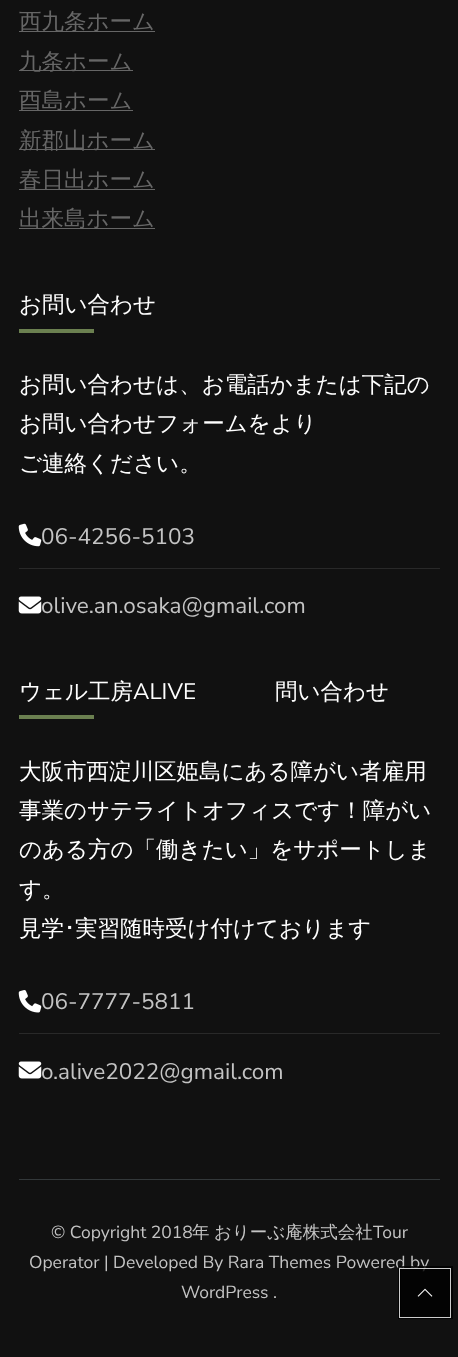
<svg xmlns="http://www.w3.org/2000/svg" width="458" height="1357">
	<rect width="100%" height="100%" fill="#111111" />
	<rect x="19" y="1179" width="421" height="1" fill="#33383A" />
	<rect x="19" y="31" width="136" height="1" fill="#666666" />
	<text x="19" y="29" font-family="WenQuanYi Zen Hei" font-size="22.5" font-weight="500" fill="#666666">西九条ホーム</text>
	<rect x="19" y="70" width="114" height="1" fill="#666666" />
	<text x="19" y="69" font-family="WenQuanYi Zen Hei" font-size="22.5" font-weight="500" fill="#666666">九条ホーム</text>
	<rect x="19" y="110" width="114" height="1" fill="#666666" />
	<text x="19" y="108" font-family="WenQuanYi Zen Hei" font-size="22.5" font-weight="500" fill="#666666">酉島ホーム</text>
	<rect x="19" y="149" width="136" height="1" fill="#666666" />
	<text x="19" y="148" font-family="WenQuanYi Zen Hei" font-size="22.5" font-weight="500" fill="#666666">新郡山ホーム</text>
	<rect x="19" y="189" width="136" height="1" fill="#666666" />
	<text x="19" y="187" font-family="WenQuanYi Zen Hei" font-size="22.5" font-weight="500" fill="#666666">春日出ホーム</text>
	<rect x="19" y="228" width="136" height="1" fill="#666666" />
	<text x="19" y="226" font-family="WenQuanYi Zen Hei" font-size="22.5" font-weight="500" fill="#666666">出来島ホーム</text>
	<text x="19" y="312" font-family="WenQuanYi Zen Hei" font-size="22.5" font-weight="500" fill="#FFFFFF">お問い合わせ</text>
	<rect x="19" y="329" width="75" height="4" fill="#6B8050" />
	<g font-family="WenQuanYi Zen Hei" font-size="22.5" font-weight="500" fill="#FFFFFF">
		<text x="19" y="392">お問い合わせは、お電話かまたは下記の</text>
		<text x="19" y="431">お問い合わせフォームをより</text>
		<text x="19" y="471">ご連絡ください。</text>
	</g>
	<rect x="19" y="568" width="421" height="1" fill="#292929" />
	<image x="18" y="523" width="24" height="24" href="assets/img1.png" />
	<text x="41" y="544" font-family="Nunito Sans" font-size="22.5" fill="#C4C4C4">06-4256-5103</text>
	<image x="18" y="596" width="24" height="18" href="assets/img2.png" />
	<text x="41" y="613" font-family="Nunito Sans" font-size="22.5" fill="#C4C4C4">olive.an.osaka@gmail.com</text>
	<text x="19" y="699" font-family="WenQuanYi Zen Hei" font-size="22.5" font-weight="500" fill="#FFFFFF">ウェル工房</text>
	<text x="133" y="699" font-family="Nunito Sans" font-size="22.5" fill="#FFFFFF">ALIVE</text>
	<text x="275" y="699" font-family="WenQuanYi Zen Hei" font-size="22.5" font-weight="500" fill="#FFFFFF">問い合わせ</text>
	<rect x="19" y="715" width="75" height="4" fill="#6B8050" />
	<g font-family="WenQuanYi Zen Hei" font-size="22.5" font-weight="500" fill="#FFFFFF">
		<text x="19" y="779">大阪市西淀川区姫島にある障がい者雇用</text>
		<text x="19" y="818">事業のサテライトオフィスです！障がい</text>
		<text x="19" y="857">のある方の「働きたい」をサポートしま</text>
		<text x="19" y="897">す。</text>
		<text x="19" y="936">見学</text>
	</g>
	<text x="64" y="936" font-family="IPAPGothic" font-size="22.5" fill="#FFFFFF">･</text>
	<text x="75" y="936" font-family="WenQuanYi Zen Hei" font-size="22.5" font-weight="500" fill="#FFFFFF">実習随時受け付けております</text>
	<rect x="19" y="1033" width="421" height="1" fill="#292929" />
	<image x="18" y="990" width="24" height="23" href="assets/img3.png" />
	<text x="41" y="1009" font-family="Nunito Sans" font-size="22.5" fill="#C4C4C4">06-7777-5811</text>
	<image x="18" y="1061" width="24" height="18" href="assets/img2.png" />
	<text x="41" y="1079" font-family="Nunito Sans" font-size="22.5" fill="#C4C4C4">o.alive2022@gmail.com</text>
	<text x="51" y="1238" font-family="Nunito Sans" font-size="17.5" fill="#C4C4C4">© Copyright 2018</text>
	<g font-family="WenQuanYi Zen Hei" font-size="17.5" font-weight="500" fill="#C4C4C4">
		<text x="192" y="1238">年</text>
		<text x="214" y="1238">おりーぶ庵株式会社</text>
	</g>
	<g font-family="Nunito Sans" font-size="17.5" fill="#C4C4C4">
		<text x="373" y="1238">Tour</text>
		<text x="29" y="1268">Operator | Developed By Rara Themes Powered by</text>
		<text x="181" y="1298">WordPress .</text>
	</g>
	<rect x="399.5" y="1267.5" width="52" height="50" fill="none" stroke="#000000" stroke-opacity="0.8" stroke-width="3" />
	<rect x="399.5" y="1268.5" width="51" height="49" fill="none" stroke="#FFFFFF" stroke-opacity="0.8" />
	<rect x="400" y="1269" width="50" height="47" fill="#000000" fill-opacity="0.8" />
	<image x="417" y="1288" width="16" height="9" href="assets/img4.png" />
</svg>
